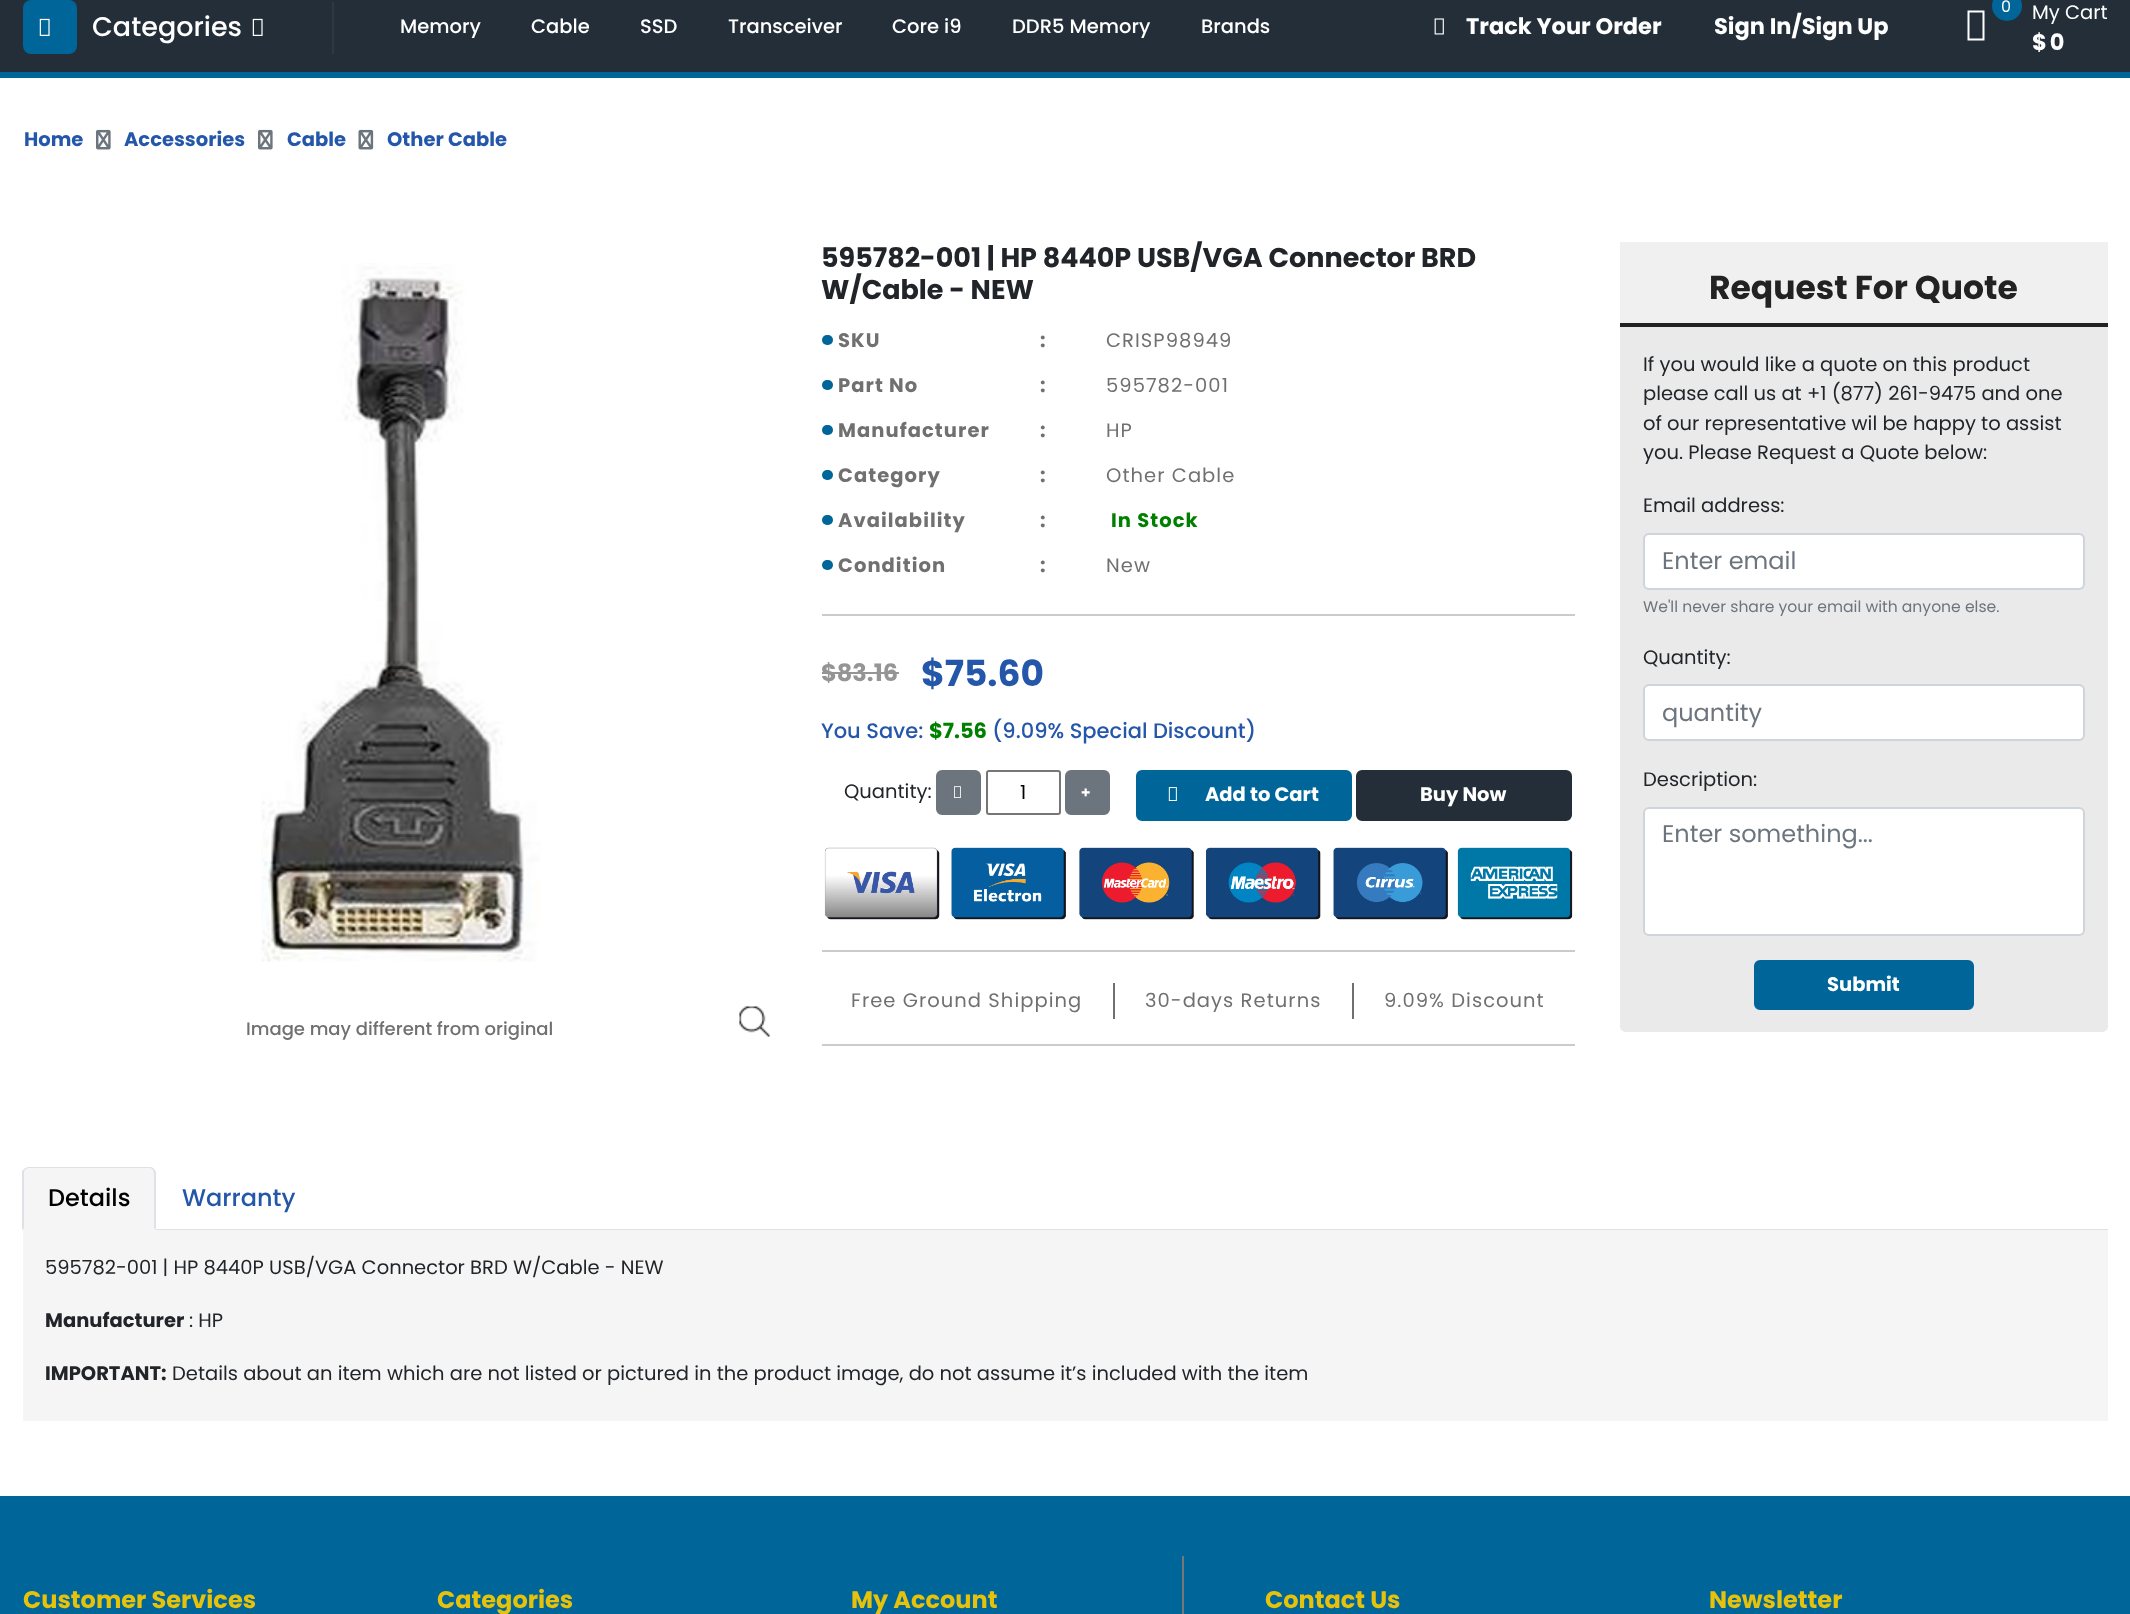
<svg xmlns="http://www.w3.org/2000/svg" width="2130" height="1614">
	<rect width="100%" height="100%" fill="#FFFFFF" />
	<rect x="0" y="0" width="2130" height="72" fill="#232E38" />
	<rect x="0" y="72" width="2130" height="6" fill="#006599" />
	<rect x="23" y="0" width="54" height="54" rx="8" fill="#006599" />
	<image x="39" y="18" width="11" height="18" href="assets/img1.png" />
	<text x="92" y="36" font-family="Poppins" font-size="27" font-weight="500" fill="#FFFFFF">Categories</text>
	<image x="252" y="18" width="11" height="18" href="assets/img2.png" />
	<rect x="332" y="2" width="2" height="52" fill="#2E3842" />
	<g font-family="Poppins" font-size="19.5" font-weight="500" fill="#FFFFFF">
		<text x="400" y="33">Memory</text>
		<text x="531" y="33">Cable</text>
		<text x="640" y="33">SSD</text>
		<text x="728" y="33">Transceiver</text>
		<text x="892" y="33">Core i9</text>
		<text x="1012" y="33">DDR5 Memory</text>
		<text x="1201" y="33">Brands</text>
	</g>
	<image x="1434" y="18" width="10" height="17" href="assets/img3.png" />
	<g font-family="Poppins" font-size="22.5" font-weight="700" fill="#FFFFFF">
		<text x="1466" y="34">Track Your Order</text>
		<text x="1714" y="34">Sign In/Sign Up</text>
	</g>
	<circle cx="2007" cy="6" r="15" fill="#006599" />
	<text x="2001" y="12" font-family="Poppins" font-size="16" fill="#FFFFFF">0</text>
	<path d="M1967.5 40.5V10.5H1984.5V40.5ZM1969.5 38.5H1982.5V12.5H1969.5Z" fill="#FFFFFF" />
	<text x="2032" y="19" font-family="Poppins" font-size="19.5" fill="#FFFFFF">My Cart</text>
	<text x="2032" y="50" font-family="Poppins" font-size="22.5" font-weight="700" letter-spacing="3" fill="#FFFFFF">$0</text>
	<text x="24" y="146" font-family="Poppins" font-size="19.5" font-weight="700" fill="#2457AA">Home</text>
	<image x="96" y="129" width="15" height="21" href="assets/img4.png" />
	<text x="124" y="146" font-family="Poppins" font-size="19.5" font-weight="700" fill="#2457AA">Accessories</text>
	<image x="258" y="129" width="15" height="21" href="assets/img4.png" />
	<text x="287" y="146" font-family="Poppins" font-size="19.5" font-weight="700" fill="#2457AA">Cable</text>
	<image x="358" y="129" width="16" height="21" href="assets/img5.png" />
	<text x="387" y="146" font-family="Poppins" font-size="19.5" font-weight="700" fill="#2457AA">Other Cable</text>
	<g font-family="Poppins" font-size="27" font-weight="700" fill="#212529">
		<text x="821" y="267">595782-001 | HP 8440P USB/VGA Connector BRD</text>
		<text x="821" y="299">W/Cable - NEW</text>
	</g>
	<rect x="822" y="614" width="753" height="2" fill="#CBCBCB" />
	<rect x="822" y="335" width="11" height="10" rx="5" fill="#006599" />
	<g font-family="Poppins" font-size="19.5" font-weight="700" letter-spacing="1.05" fill="#707070">
		<text x="838" y="347">SKU</text>
		<text x="1040" y="347">:</text>
	</g>
	<text x="1106" y="347" font-family="Poppins" font-size="19.5" letter-spacing="1.05" fill="#707070">CRISP98949</text>
	<rect x="822" y="380" width="11" height="10" rx="5" fill="#006599" />
	<g font-family="Poppins" font-size="19.5" font-weight="700" letter-spacing="1.05" fill="#707070">
		<text x="838" y="392">Part No</text>
		<text x="1040" y="392">:</text>
	</g>
	<text x="1106" y="392" font-family="Poppins" font-size="19.5" letter-spacing="1.05" fill="#707070">595782-001</text>
	<rect x="822" y="425" width="11" height="10" rx="5" fill="#006599" />
	<g font-family="Poppins" font-size="19.5" font-weight="700" letter-spacing="1.05" fill="#707070">
		<text x="838" y="437">Manufacturer</text>
		<text x="1040" y="437">:</text>
	</g>
	<text x="1106" y="437" font-family="Poppins" font-size="19.5" letter-spacing="1.05" fill="#707070">HP</text>
	<rect x="822" y="470" width="11" height="10" rx="5" fill="#006599" />
	<g font-family="Poppins" font-size="19.5" font-weight="700" letter-spacing="1.05" fill="#707070">
		<text x="838" y="482">Category</text>
		<text x="1040" y="482">:</text>
	</g>
	<text x="1106" y="482" font-family="Poppins" font-size="19.5" letter-spacing="1.05" fill="#707070">Other Cable</text>
	<rect x="822" y="515" width="11" height="10" rx="5" fill="#006599" />
	<g font-family="Poppins" font-size="19.5" font-weight="700" letter-spacing="1.05" fill="#707070">
		<text x="838" y="527">Availability</text>
		<text x="1040" y="527">:</text>
	</g>
	<text x="1111" y="527" font-family="Poppins" font-size="19.5" font-weight="700" letter-spacing="1.05" fill="#008000">In Stock</text>
	<rect x="822" y="560" width="11" height="10" rx="5" fill="#006599" />
	<g font-family="Poppins" font-size="19.5" font-weight="700" letter-spacing="1.05" fill="#707070">
		<text x="838" y="572">Condition</text>
		<text x="1040" y="572">:</text>
	</g>
	<text x="1106" y="572" font-family="Poppins" font-size="19.5" letter-spacing="1.05" fill="#707070">New</text>
	<text x="821" y="681" font-family="Poppins" font-size="24" font-weight="700" fill="#959595">$83.16</text>
	<rect x="822" y="672" width="77" height="2" fill="#959595" />
	<text x="921" y="686" font-family="Poppins" font-size="36" font-weight="700" fill="#2457AA">$75.60</text>
	<text x="821" y="738" font-family="Poppins" font-size="21" font-weight="500" fill="#2457AA">You Save:</text>
	<text x="929" y="738" font-family="Poppins" font-size="21" font-weight="700" fill="#008000">$7.56</text>
	<text x="992" y="738" font-family="Poppins" font-size="21" font-weight="500" fill="#2457AA">(9.09% Special Discount)</text>
	<text x="844" y="798" font-family="Poppins" font-size="19.5" fill="#212529">Quantity:</text>
	<rect x="937" y="771" width="43" height="43" rx="5" fill="#6C757D" stroke="#6C757D" stroke-width="2" />
	<image x="954" y="786" width="7" height="12" href="assets/img6.png" />
	<rect x="987" y="771" width="73" height="43" rx="2" fill="none" stroke="#767676" stroke-width="2" />
	<text x="1020" y="799" font-family="Poppins" font-size="19.5" fill="#000000">1</text>
	<rect x="1066" y="771" width="43" height="43" rx="5" fill="#6C757D" stroke="#6C757D" stroke-width="2" />
	<text x="1081" y="798" font-family="Noto Sans" font-size="16" font-weight="900" fill="#FFFFFF">+</text>
	<rect x="1137" y="771" width="214" height="49" rx="5" fill="#006599" stroke="#006599" stroke-width="2" />
	<image x="1168" y="787" width="9" height="14" href="assets/img7.png" />
	<text x="1205" y="801" font-family="Poppins" font-size="19.5" font-weight="700" fill="#FFFFFF">Add to Cart</text>
	<rect x="1357" y="771" width="214" height="49" rx="5" fill="#232E38" stroke="#232E38" stroke-width="2" />
	<text x="1420" y="801" font-family="Poppins" font-size="19.5" font-weight="700" fill="#FFFFFF">Buy Now</text>
	<image x="824" y="847" width="749" height="73" href="assets/img8.png" />
	<rect x="822" y="950" width="753" height="2" fill="#CBCBCB" />
	<rect x="822" y="1044" width="753" height="2" fill="#CBCBCB" />
	<text x="851" y="1007" font-family="Poppins" font-size="19.5" letter-spacing="1.05" fill="#707070">Free Ground Shipping</text>
	<rect x="1352" y="983" width="2" height="36" fill="#707070" />
	<rect x="1113" y="983" width="2" height="36" fill="#707070" />
	<g font-family="Poppins" font-size="19.5" letter-spacing="1.05" fill="#707070">
		<text x="1145" y="1007">30-days Returns</text>
		<text x="1384" y="1007">9.09% Discount</text>
	</g>
	<image x="261" y="263" width="280" height="699" href="assets/img9.png" />
	<image x="739" y="1006" width="31" height="31" href="assets/img10.png" />
	<text x="246" y="1035" font-family="Poppins" font-size="18" font-weight="500" fill="#707070">Image may different from original</text>
	<rect x="1620" y="242" width="488" height="81" fill="#F0F0F0" />
	<rect x="1620" y="323" width="488" height="4" fill="#222222" />
	<text x="1709" y="299" font-family="Poppins" font-size="33" font-weight="700" fill="#222222">Request For Quote</text>
	<path d="M1620 327H2108V1026C2108 1029.5 2105.5 1032 2102 1032H1626C1622.5 1032 1620 1029.5 1620 1026Z" fill="#EAEAEA" />
	<g font-family="Poppins" font-size="19.5" fill="#212529">
		<text x="1643" y="371">If you would like a quote on this product</text>
		<text x="1643" y="400">please call us at +1 (877) 261-9475 and one</text>
		<text x="1643" y="430">of our representative wil be happy to assist</text>
		<text x="1643" y="459">you. Please Request a Quote below:</text>
		<text x="1643" y="512">Email address:</text>
	</g>
	<rect x="1644" y="534" width="440" height="55" rx="5" fill="#FFFFFF" stroke="#CED4DA" stroke-width="2" />
	<text x="1662" y="569" font-family="Poppins" font-size="24" fill="#6C757D">Enter email</text>
	<text x="1643" y="612" font-family="Poppins" font-size="15.6" fill="#6C757D">We'll never share your email with anyone else.</text>
	<text x="1643" y="664" font-family="Poppins" font-size="19.5" fill="#212529">Quantity:</text>
	<rect x="1644" y="685" width="440" height="55" rx="5" fill="#FFFFFF" stroke="#CED4DA" stroke-width="2" />
	<text x="1662" y="721" font-family="Poppins" font-size="24" fill="#6C757D">quantity</text>
	<text x="1643" y="786" font-family="Poppins" font-size="19.5" fill="#212529">Description:</text>
	<rect x="1644" y="808" width="440" height="127" rx="5" fill="#FFFFFF" stroke="#CED4DA" stroke-width="2" />
	<text x="1662" y="842" font-family="Poppins" font-size="24" fill="#6C757D">Enter something...</text>
	<rect x="1755" y="961" width="218" height="48" rx="5" fill="#006599" stroke="#006599" stroke-width="2" />
	<text x="1827" y="991" font-family="Poppins" font-size="19.5" font-weight="700" fill="#FFFFFF">Submit</text>
	<rect x="156" y="1229" width="1952" height="1" fill="#DEE2E6" />
	<path d="M29 1167H150C153.5 1167 156 1169.5 156 1173V1230H23V1173C23 1169.5 25.5 1167 29 1167Z" fill="#F5F5F5" />
	<path d="M28 1167C27 1167 25 1168 24 1169L25 1170L28 1168H150C151 1168 152 1169 153 1170L154 1169C153 1168 152 1167 150 1167Z" fill="#DEE2E6" />
	<path d="M156 1230V1173C156 1172 155 1170 154 1169L153 1170L154 1173V1228Z" fill="#DEE2E6" />
	<path d="M156 1230L154 1228H24L22 1230Z" fill="#F5F5F5" />
	<path d="M22 1230V1171L24 1169L25 1170C24 1171 24 1172 24 1173V1228Z" fill="#DEE2E6" />
	<text x="48" y="1206" font-family="Poppins" font-size="24" font-weight="500" fill="#000000">Details</text>
	<text x="182" y="1206" font-family="Poppins" font-size="24" font-weight="500" fill="#2457AA">Warranty</text>
	<rect x="23" y="1230" width="2085" height="191" fill="#F5F5F5" />
	<text x="45" y="1274" font-family="Poppins" font-size="19.5" fill="#212529">595782-001 | HP 8440P USB/VGA Connector BRD W/Cable - NEW</text>
	<text x="45" y="1327" font-family="Poppins" font-size="19.5" font-weight="700" fill="#212529">Manufacturer</text>
	<text x="189" y="1327" font-family="Poppins" font-size="19.5" fill="#212529">: HP</text>
	<text x="45" y="1380" font-family="Poppins" font-size="19.5" font-weight="700" fill="#212529">IMPORTANT:</text>
	<text x="172" y="1380" font-family="Poppins" font-size="19.5" fill="#212529">Details about an item which are not listed or pictured in the product image, do not assume it’s included with the item</text>
	<rect x="0" y="1496" width="2130" height="118" fill="#006599" />
	<g font-family="Poppins" font-size="24" font-weight="700" fill="#E7C20A">
		<text x="23" y="1608">Customer Services</text>
		<text x="437" y="1608">Categories</text>
		<text x="851" y="1608">My Account</text>
	</g>
	<rect x="1182" y="1556" width="2" height="58" fill="#777777" />
	<g font-family="Poppins" font-size="24" font-weight="700" fill="#E7C20A">
		<text x="1265" y="1608">Contact Us</text>
		<text x="1709" y="1608">Newsletter</text>
	</g>
</svg>
